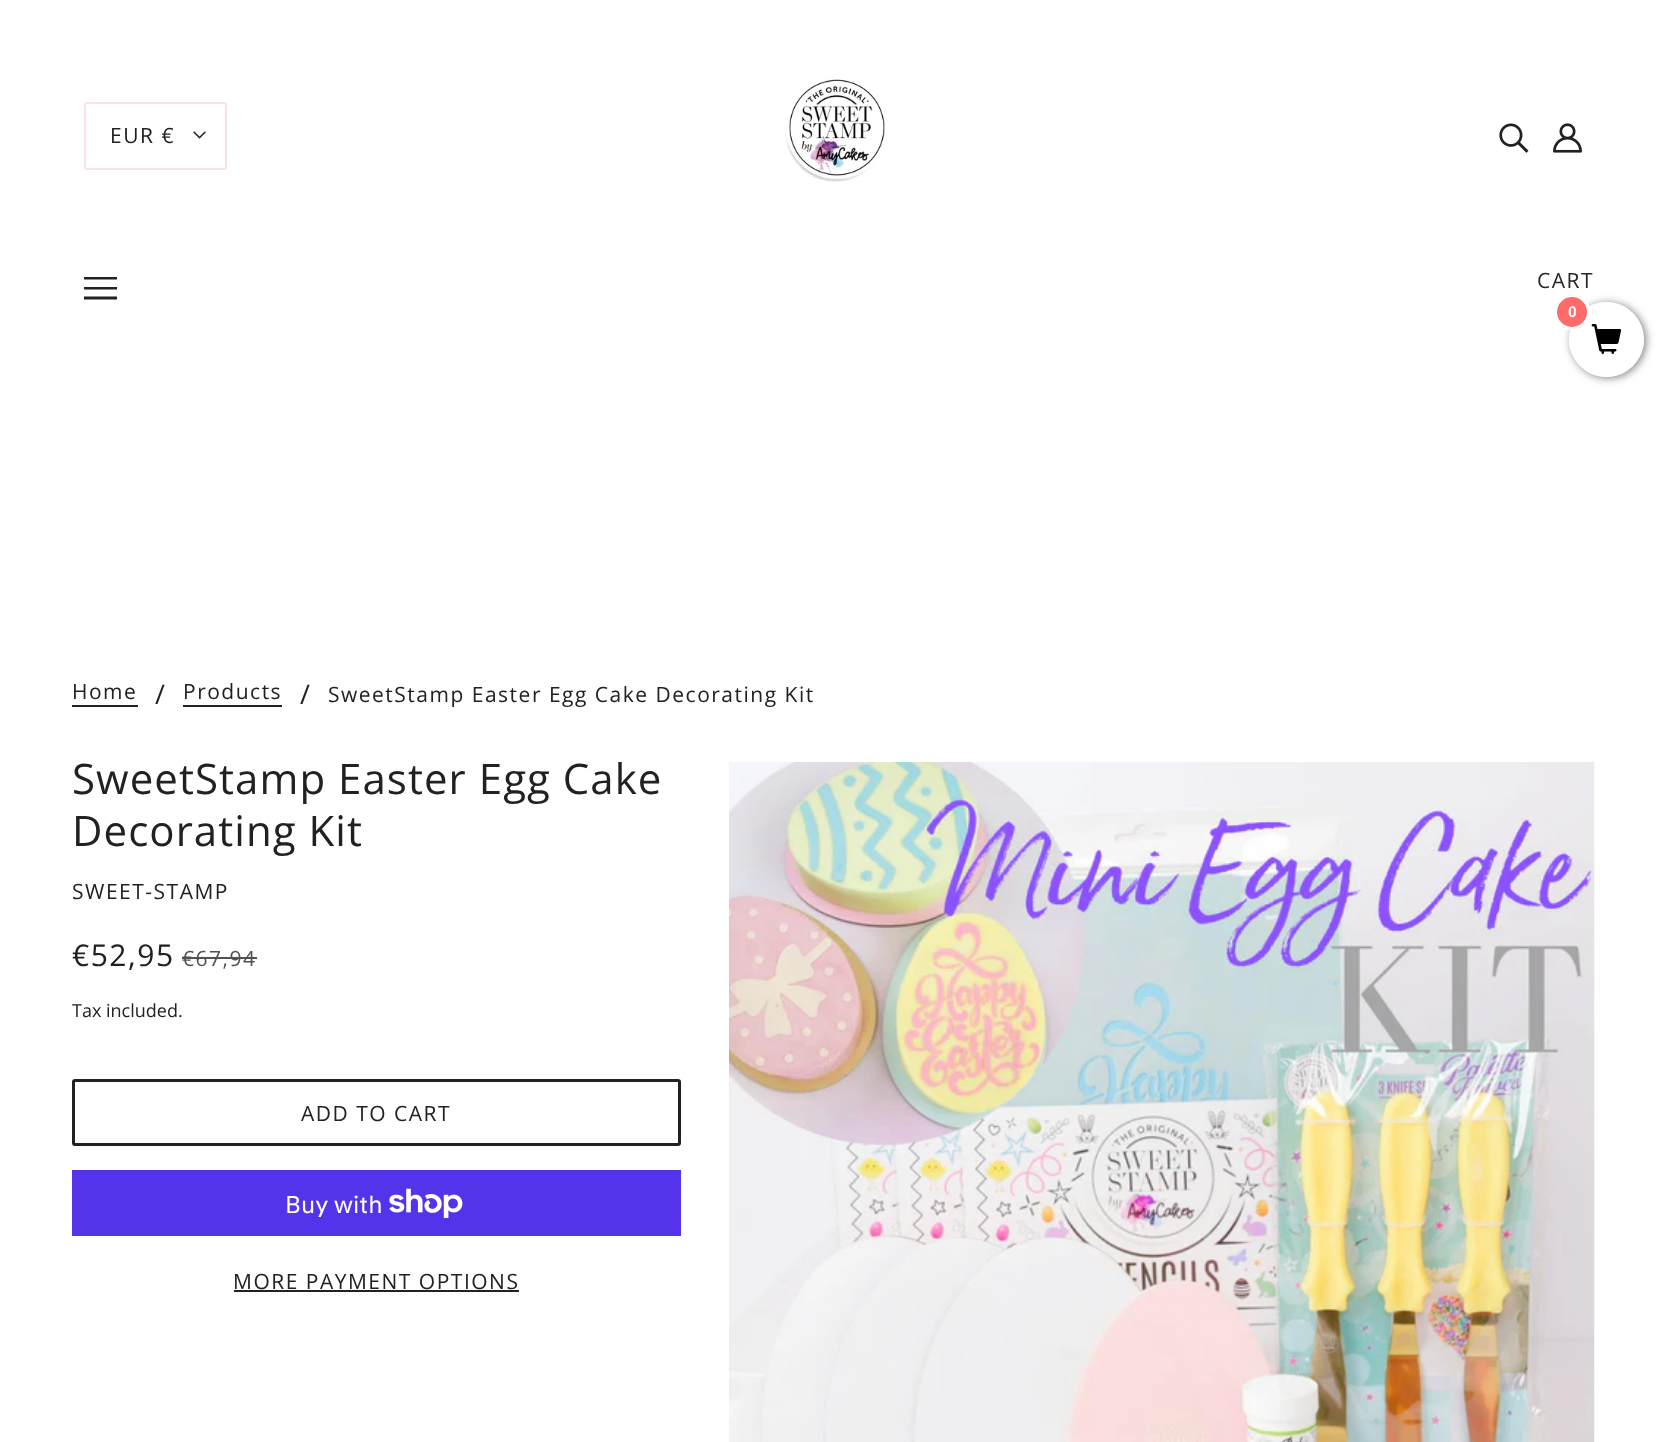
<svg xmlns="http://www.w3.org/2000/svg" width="1666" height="1442">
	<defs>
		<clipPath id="clip1"><path d="M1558 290H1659V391H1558ZM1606.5 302C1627 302 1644 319 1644 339.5C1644 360 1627 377 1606.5 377C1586 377 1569 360 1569 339.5C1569 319 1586 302 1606.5 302Z" clip-rule="evenodd" /></clipPath>
	</defs>
	<rect width="100%" height="100%" fill="#FFFFFF" />
	<rect x="85" y="103" width="141" height="66" rx="2" fill="none" stroke="#FFDFEF" stroke-width="2" />
	<text x="110" y="143" font-family="Open Sans" font-size="21" letter-spacing="1.5" fill="#212121">EUR €</text>
	<image x="193" y="131" width="13" height="8" href="assets/img1.png" />
	<image x="785" y="78" width="100" height="104" href="assets/img2.png" />
	<image x="1499" y="123" width="30" height="30" href="assets/img3.png" />
	<image x="1553" y="123" width="29" height="30" href="assets/img4.png" />
	<path d="M84 279.5V277H117V279.5ZM84 289.5V287H117V289.5ZM84 299.5V296.5H117V299.5Z" fill="#212121" />
	<text x="1537" y="288" font-family="Open Sans" font-size="21" letter-spacing="1.5" fill="#272727">CART</text>
	<text x="72" y="699" font-family="Open Sans" font-size="21" letter-spacing="1.5" fill="#212121">Home</text>
	<rect x="72" y="705" width="66" height="2" fill="#212121" />
	<text x="155" y="704" font-family="Open Sans" font-size="27" fill="#212121">/</text>
	<text x="183" y="699" font-family="Open Sans" font-size="21" letter-spacing="1.5" fill="#212121">Products</text>
	<rect x="183" y="705" width="99" height="2" fill="#212121" />
	<text x="300" y="704" font-family="Open Sans" font-size="27" fill="#212121">/</text>
	<text x="328" y="702" font-family="Open Sans" font-size="21" letter-spacing="1.5" fill="#212121">SweetStamp Easter Egg Cake Decorating Kit</text>
	<g font-family="Open Sans" font-size="42" letter-spacing="1.05" fill="#212121">
		<text x="72" y="794">SweetStamp Easter Egg Cake</text>
		<text x="72" y="846">Decorating Kit</text>
	</g>
	<text x="72" y="899" font-family="Open Sans" font-size="21" letter-spacing="1.5" fill="#212121">SWEET-STAMP</text>
	<text x="72" y="966" font-family="Open Sans" font-size="30" letter-spacing="1.5" fill="#212121">€52,95</text>
	<text x="182" y="966" font-family="Open Sans" font-size="21" letter-spacing="1.5" fill="#515151">€67,94</text>
	<rect x="182" y="957" width="75" height="2" fill="#515151" />
	<text x="72" y="1017" font-family="Open Sans" font-size="18" fill="#212121">Tax included.</text>
	<rect x="73.5" y="1080.5" width="606" height="64" rx="1.5" fill="none" stroke="#212121" stroke-width="3" />
	<text x="301" y="1121" font-family="Open Sans" font-size="21" letter-spacing="1.5" fill="#212121">ADD TO CART</text>
	<rect x="72" y="1170" width="609" height="66" fill="#5433EB" />
	<text x="285" y="1213" font-family="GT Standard" font-size="24" fill="#FFFFFF">Buy with</text>
	<image x="389" y="1188" width="74" height="30" href="assets/img5.png" />
	<text x="233" y="1289" font-family="Open Sans" font-size="21" letter-spacing="1.5" fill="#212121">MORE PAYMENT OPTIONS</text>
	<rect x="234" y="1290" width="285" height="2" fill="#212121" />
	<image x="729" y="762" width="866" height="680" href="assets/img6.png" />
	<g clip-path="url(#clip1)">
		<rect x="1571" y="303" width="75" height="75" rx="37.5" fill="#808080" filter="blur(4px)" />
	</g>
	<circle cx="1606.5" cy="339.5" r="37.5" fill="#FFFFFF" fill-opacity="0.9" />
	<circle cx="1572" cy="312" r="16.5" fill="#FF6B6B" stroke="#FFFFFF" stroke-width="3" />
	<text x="1568" y="317" font-family="Roboto" font-size="15" font-weight="700" fill="#FFFFFF">0</text>
	<image x="1591" y="324" width="31" height="30" href="assets/img7.png" />
</svg>
